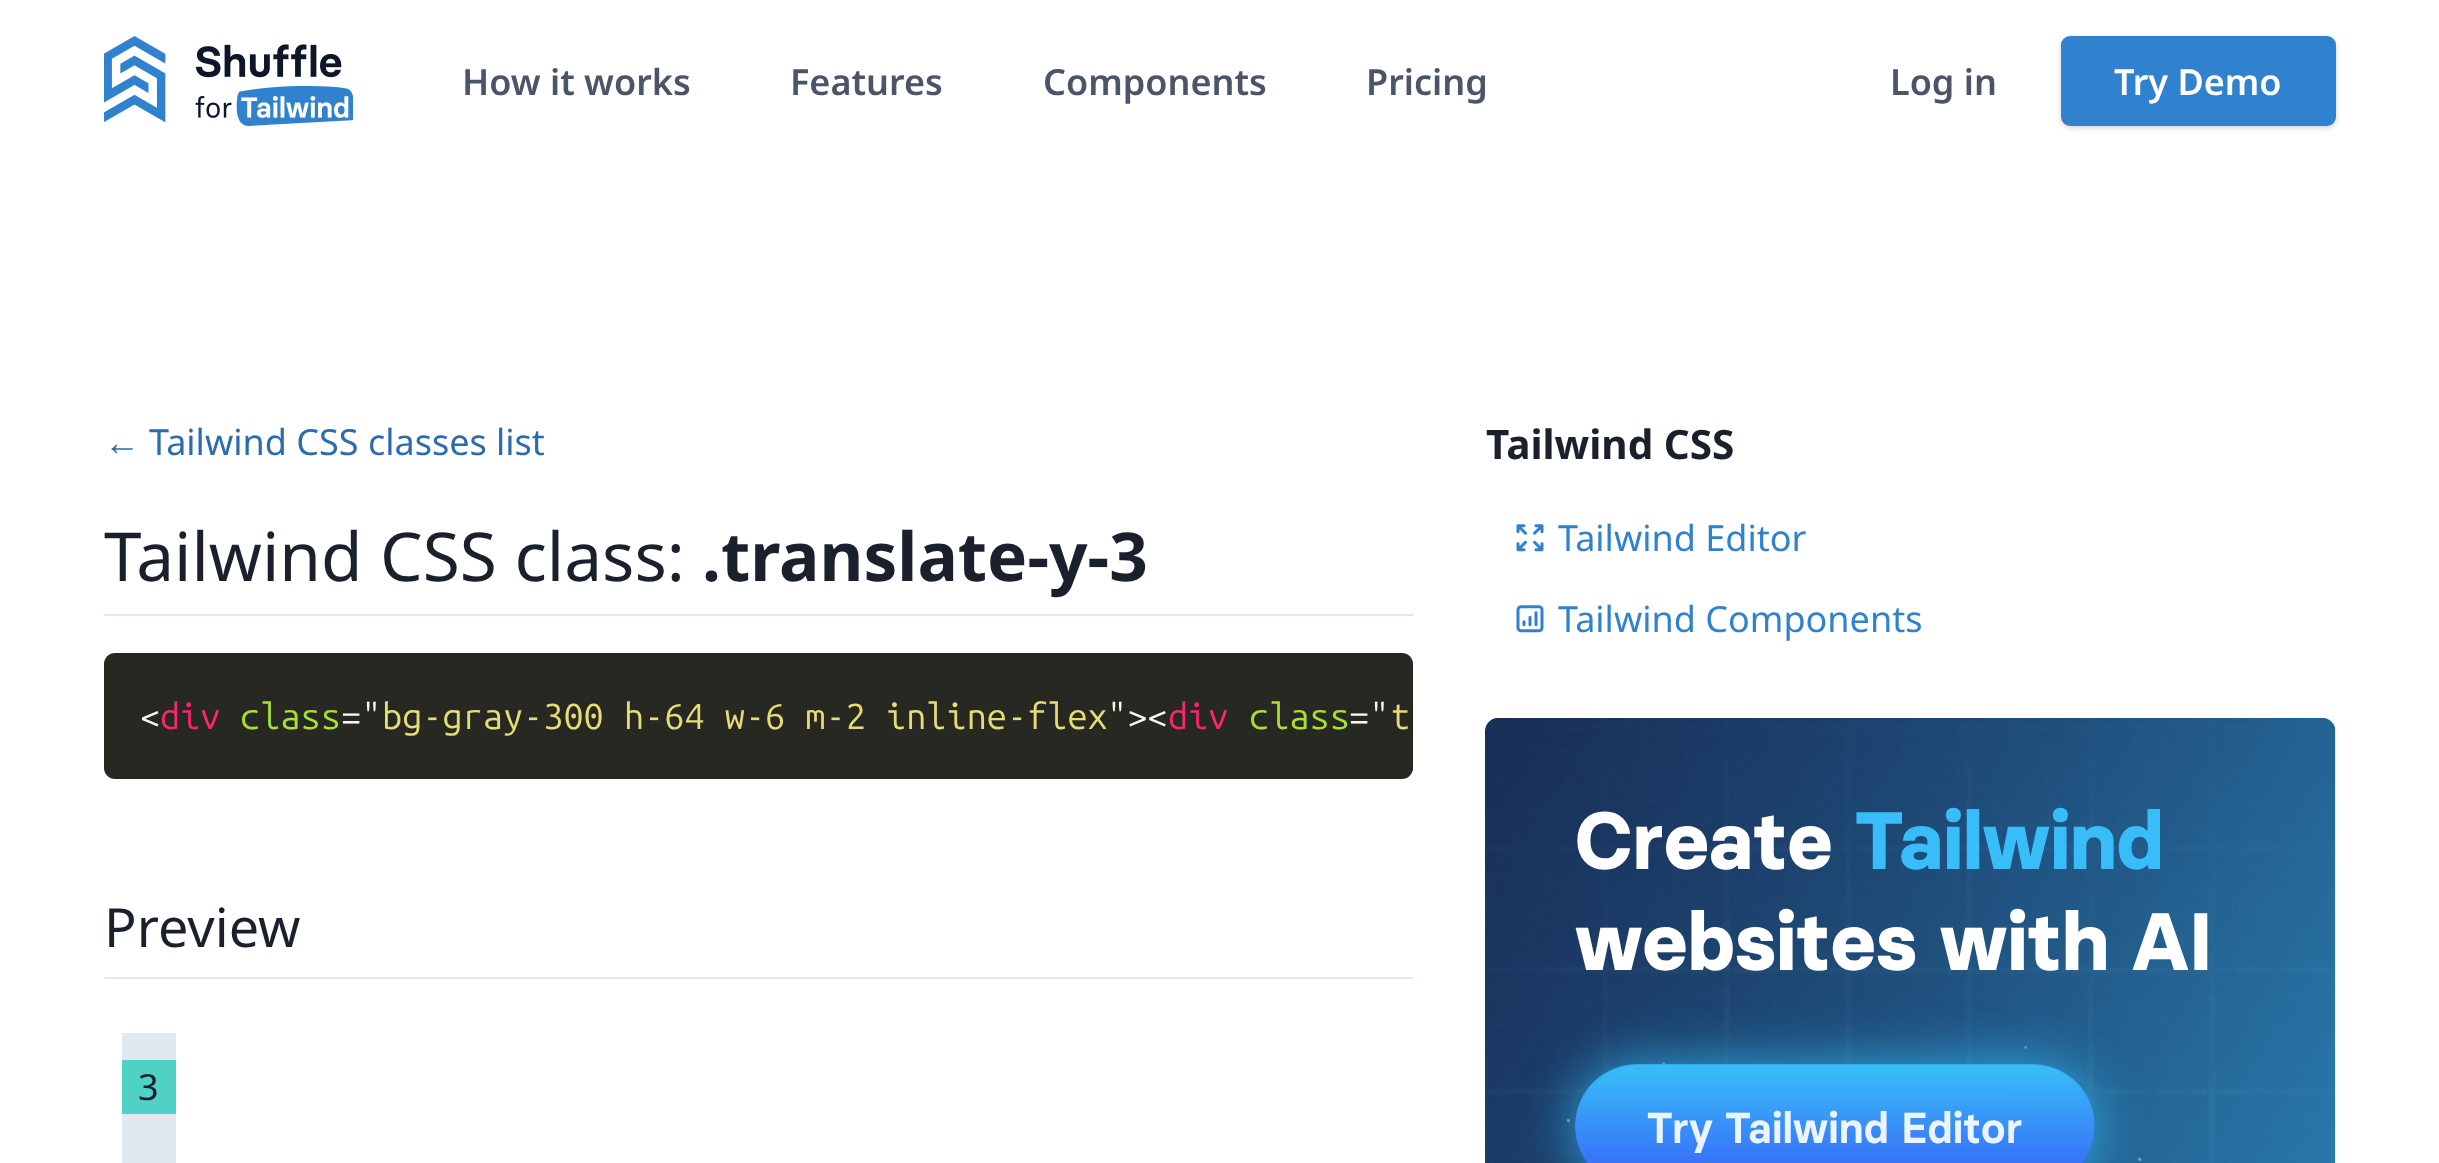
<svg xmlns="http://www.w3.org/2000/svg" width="2439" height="1163">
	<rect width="100%" height="100%" fill="#FFFFFF" />
	<image x="104" y="36" width="249" height="90" href="assets/img1.png" />
	<g font-family="Noto Sans" font-size="36" font-weight="600" fill="#4A5568">
		<text x="462" y="95">How it works</text>
		<text x="790" y="95">Features</text>
		<text x="1043" y="95">Components</text>
		<text x="1366" y="95">Pricing</text>
		<text x="1890" y="95">Log in</text>
	</g>
	<rect x="2061" y="38" width="275" height="90" rx="9" fill="#000000" fill-opacity="0.06" filter="blur(2px)" />
	<rect x="2061" y="38" width="275" height="90" rx="9" fill="#000000" fill-opacity="0.1" filter="blur(3.5px)" />
	<rect x="2061" y="36" width="275" height="90" rx="9" fill="#3182CE" />
	<text x="2114" y="95" font-family="Noto Sans" font-size="36" font-weight="600" fill="#FFFFFF">Try Demo</text>
	<text x="104" y="455" font-family="Liberation Sans" font-size="36" fill="#2B6CB0">←</text>
	<text x="149" y="455" font-family="Noto Sans" font-size="36" fill="#2B6CB0">Tailwind CSS classes list</text>
	<rect x="104" y="614" width="1309" height="2" fill="#E2E8F0" />
	<text x="104" y="581" font-family="Noto Sans" font-size="67.5" fill="#1A202C">Tailwind CSS class:</text>
	<text x="702" y="581" font-family="Noto Sans" font-size="67.5" font-weight="700" fill="#1A202C">.translate-y-3</text>
	<rect x="104" y="653" width="1309" height="126" rx="11" fill="#272822" />
	<text x="140" y="729" font-family="Ubuntu Mono" font-size="36" fill="#F8F8F2">&lt;</text>
	<text x="160" y="729" font-family="Ubuntu Mono" font-size="36" fill="#F92672">div</text>
	<text x="240" y="729" font-family="Ubuntu Mono" font-size="36" fill="#A6E22E">class</text>
	<text x="341" y="729" font-family="Ubuntu Mono" font-size="36" fill="#F8F8F2">="</text>
	<text x="382" y="729" font-family="Ubuntu Mono" font-size="36" fill="#E6DB74">bg-gray-300 h-64 w-6 m-2 inline-flex</text>
	<text x="1107" y="729" font-family="Ubuntu Mono" font-size="36" fill="#F8F8F2">"&gt;&lt;</text>
	<text x="1168" y="729" font-family="Ubuntu Mono" font-size="36" fill="#F92672">div</text>
	<text x="1249" y="729" font-family="Ubuntu Mono" font-size="36" fill="#A6E22E">class</text>
	<text x="1349" y="729" font-family="Ubuntu Mono" font-size="36" fill="#F8F8F2">="</text>
	<text x="1390" y="729" font-family="Ubuntu Mono" font-size="36" fill="#E6DB74">t</text>
	<rect x="104" y="977" width="1309" height="2" fill="#E2E8F0" />
	<text x="104" y="947" font-family="Noto Sans" font-size="54" fill="#1A202C">Preview</text>
	<rect x="122" y="1033" width="54" height="130" fill="#E2E8F0" />
	<rect x="122" y="1060" width="54" height="54" fill="#4FD1C5" />
	<text x="138" y="1100" font-family="Noto Sans" font-size="36" fill="#1A202C">3</text>
	<text x="1486" y="459" font-family="Noto Sans" font-size="40.5" font-weight="700" fill="#1A202C">Tailwind CSS</text>
	<image x="1516" y="524" width="28" height="28" href="assets/img2.png" />
	<text x="1558" y="551" font-family="Noto Sans" font-size="36" fill="#3182CE">Tailwind Editor</text>
	<image x="1516" y="605" width="28" height="28" href="assets/img3.png" />
	<text x="1558" y="632" font-family="Noto Sans" font-size="36" fill="#3182CE">Tailwind Components</text>
	<image x="1485" y="718" width="851" height="445" href="assets/img4.png" />
</svg>
